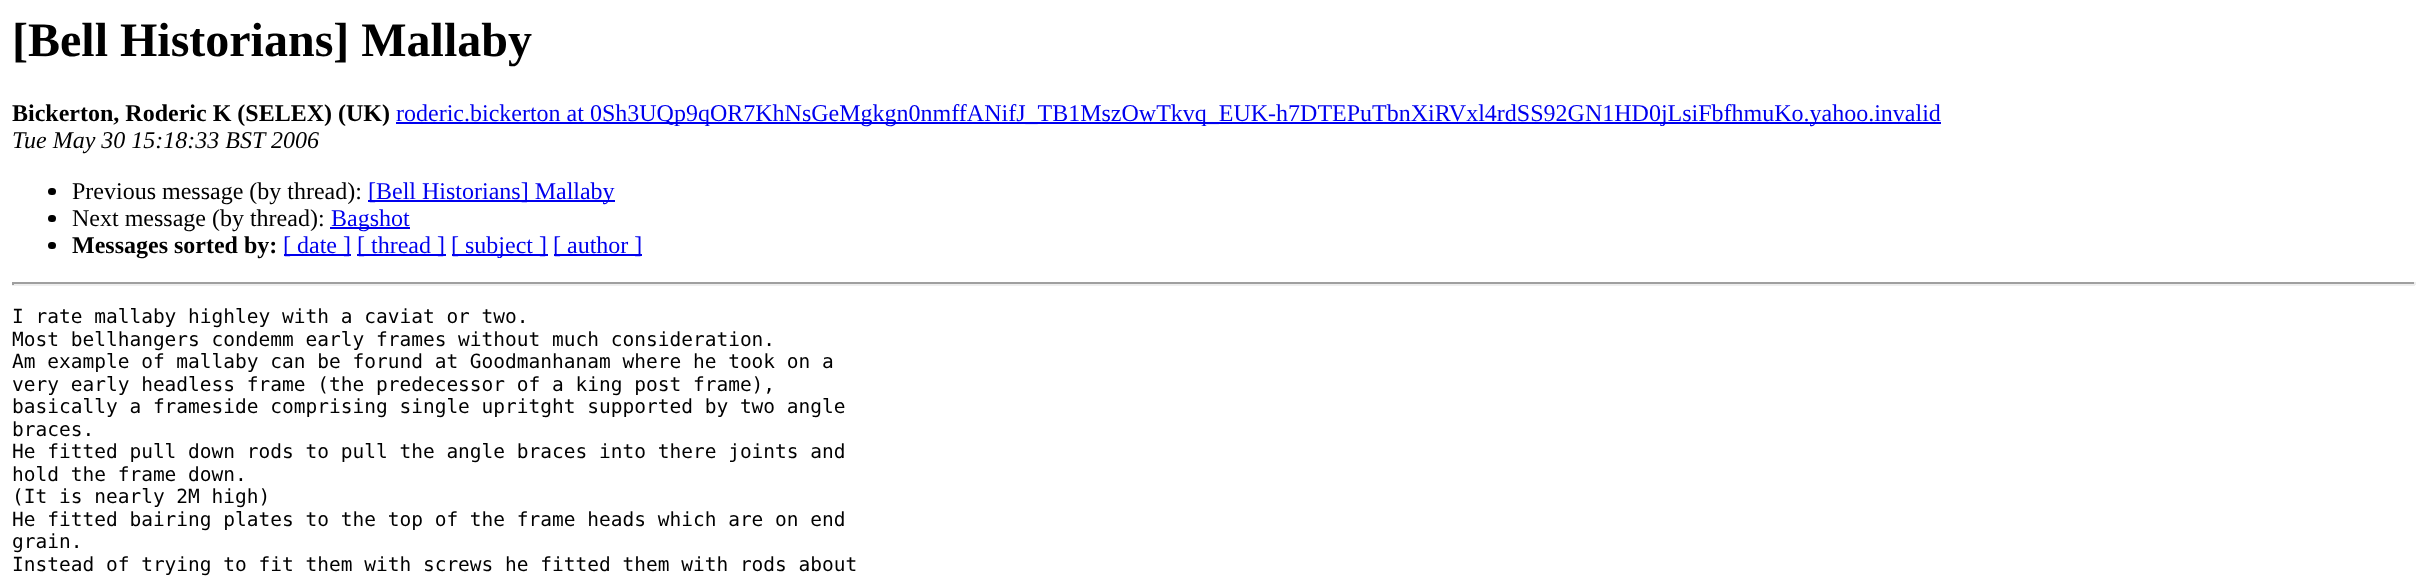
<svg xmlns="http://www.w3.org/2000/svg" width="2427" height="584">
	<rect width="100%" height="100%" fill="#FFFFFF" />
	<text x="12" y="56" font-family="Liberation Serif" font-size="48" font-weight="700" fill="#000000">[Bell Historians] Mallaby</text>
	<text x="12" y="121" font-family="Liberation Serif" font-size="24" font-weight="700" fill="#000000">Bickerton, Roderic K (SELEX) (UK)</text>
	<rect x="396" y="122" width="1545" height="2" fill="#0000EE" />
	<text x="396" y="121" font-family="Liberation Serif" font-size="24" fill="#0000EE">roderic.bickerton at 0Sh3UQp9qOR7KhNsGeMgkgn0nmffANifJ_TB1MszOwTkvq_EUK-h7DTEPuTbnXiRVxl4rdSS92GN1HD0jLsiFbfhmuKo.yahoo.invalid</text>
	<text x="12" y="148" font-family="Liberation Serif" font-size="24" font-style="italic" fill="#000000">Tue May 30 15:18:33 BST 2006</text>
	<rect x="48" y="188" width="8" height="7" rx="3.5" fill="#000000" />
	<text x="72" y="199" font-family="Liberation Serif" font-size="24" fill="#000000">Previous message (by thread):</text>
	<rect x="368" y="200" width="247" height="2" fill="#0000EE" />
	<text x="368" y="199" font-family="Liberation Serif" font-size="24" fill="#0000EE">[Bell Historians] Mallaby</text>
	<rect x="48" y="215" width="8" height="7" rx="3.5" fill="#000000" />
	<text x="72" y="226" font-family="Liberation Serif" font-size="24" fill="#000000">Next message (by thread):</text>
	<rect x="330" y="227" width="80" height="2" fill="#0000EE" />
	<text x="331" y="226" font-family="Liberation Serif" font-size="24" fill="#0000EE">Bagshot</text>
	<rect x="48" y="242" width="8" height="7" rx="3.5" fill="#000000" />
	<text x="72" y="253" font-family="Liberation Serif" font-size="24" font-weight="700" fill="#000000">Messages sorted by:</text>
	<rect x="284" y="254" width="67" height="2" fill="#0000EE" />
	<text x="283" y="253" font-family="Liberation Serif" font-size="24" fill="#0000EE">[ date ]</text>
	<rect x="357" y="254" width="89" height="2" fill="#0000EE" />
	<text x="357" y="253" font-family="Liberation Serif" font-size="24" fill="#0000EE">[ thread ]</text>
	<rect x="452" y="254" width="96" height="2" fill="#0000EE" />
	<text x="451" y="253" font-family="Liberation Serif" font-size="24" fill="#0000EE">[ subject ]</text>
	<rect x="554" y="254" width="88" height="2" fill="#0000EE" />
	<text x="553" y="253" font-family="Liberation Serif" font-size="24" fill="#0000EE">[ author ]</text>
	<rect x="12" y="282" width="2403" height="2" fill="#9F9F9F" />
	<rect x="2414" y="282" width="2" height="3" fill="#EEEEEE" />
	<rect x="12" y="284" width="2403" height="2" fill="#EEEEEE" />
	<rect x="12" y="282" width="2" height="3" fill="#9F9F9F" />
	<g font-family="DejaVu Sans Mono" font-size="19.5" fill="#000000">
		<text x="12" y="323">I rate mallaby highley with a caviat or two.</text>
		<text x="12" y="346">Most bellhangers condemm early frames without much consideration.</text>
		<text x="12" y="368">Am example of mallaby can be forund at Goodmanhanam where he took on a</text>
		<text x="12" y="391">very early headless frame (the predecessor of a king post frame),</text>
		<text x="12" y="413">basically a frameside comprising single upritght supported by two angle</text>
		<text x="12" y="436">braces.</text>
		<text x="12" y="458">He fitted pull down rods to pull the angle braces into there joints and</text>
		<text x="12" y="481">hold the frame down.</text>
		<text x="12" y="503">(It is nearly 2M high)</text>
		<text x="12" y="526">He fitted bairing plates to the top of the frame heads which are on end</text>
		<text x="12" y="548">grain.</text>
		<text x="12" y="571">Instead of trying to fit them with screws he fitted them with rods about</text>
	</g>
</svg>
